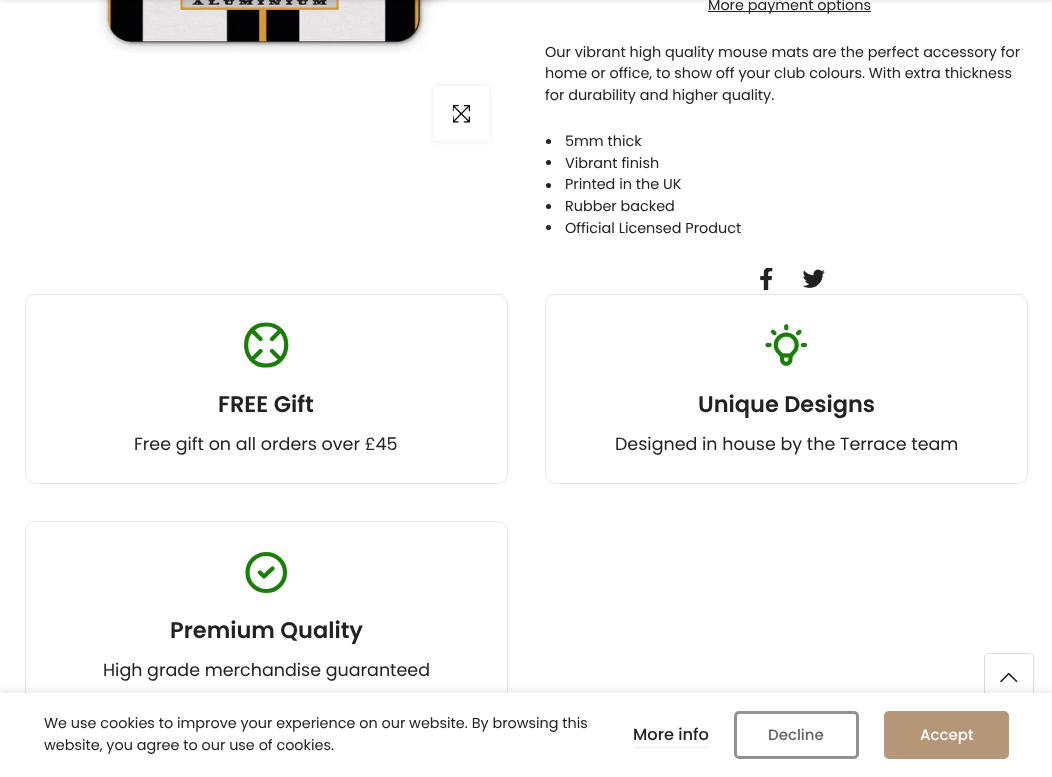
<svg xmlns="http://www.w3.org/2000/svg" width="1052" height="777">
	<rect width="100%" height="100%" fill="#FFFFFF" />
	<image x="98" y="0" width="350" height="53" href="assets/img1.png" />
	<rect x="0" y="-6" width="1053" height="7" fill="#000000" fill-opacity="0.1" filter="blur(2px)" />
	<rect x="434" y="86" width="55" height="55" fill="#000000" fill-opacity="0.09" filter="blur(3px)" />
	<rect x="434" y="86" width="55" height="55" fill="#FFFFFF" />
	<image x="453" y="105" width="17" height="18" href="assets/img2.png" />
	<rect x="708" y="11" width="163" height="1" fill="#222222" />
	<g font-family="Poppins" font-size="14.4" fill="#222222">
		<text x="708" y="10">More payment options</text>
		<text x="545" y="57">Our vibrant high quality mouse mats are the perfect accessory for</text>
		<text x="545" y="78">home or office, to show off your club colours. With extra thickness</text>
		<text x="545" y="100">for durability and higher quality.</text>
	</g>
	<circle cx="548.5" cy="141.5" r="2.5" fill="#222222" />
	<text x="565" y="146" font-family="Poppins" font-size="14.4" fill="#222222">5mm thick</text>
	<circle cx="548.5" cy="162.5" r="2.5" fill="#222222" />
	<text x="565" y="168" font-family="Poppins" font-size="14.4" fill="#222222">Vibrant finish</text>
	<circle cx="548.5" cy="185.5" r="2.5" fill="#222222" />
	<text x="565" y="189" font-family="Poppins" font-size="14.4" fill="#222222">Printed in the UK</text>
	<circle cx="548.5" cy="206.5" r="2.5" fill="#222222" />
	<text x="565" y="211" font-family="Poppins" font-size="14.4" fill="#222222">Rubber backed</text>
	<circle cx="548.5" cy="227.5" r="2.5" fill="#222222" />
	<text x="565" y="233" font-family="Poppins" font-size="14.4" fill="#222222">Official Licensed Product</text>
	<image x="760" y="268" width="13" height="22" href="assets/img3.png" />
	<image x="803" y="269" width="22" height="19" href="assets/img4.png" />
	<rect x="25.5" y="294.5" width="482" height="189" rx="9.5" fill="none" stroke="#E5E5E5" />
	<path d="M279.5 331.5L272 339M272 351L279.5 358.5M260.5 339L253 331.5M260.5 351L253 358.5M266 324.5C239.5 324.5 239.5 365.5 266 365.5C293 365.5 293 324.5 266 324.5Z" fill="none" stroke="#1A7F08" stroke-width="4.2" stroke-linecap="round" stroke-linejoin="round" />
	<text x="218" y="412" font-family="Poppins" font-size="22.5" font-weight="600" fill="#222222">FREE Gift</text>
	<text x="134" y="450" font-family="Poppins" font-size="17.5" fill="#222222">Free gift on all orders over £45</text>
	<rect x="545.5" y="294.5" width="482" height="189" rx="9.5" fill="none" stroke="#E5E5E5" />
	<image x="765" y="324" width="43" height="42" href="assets/img5.png" />
	<text x="698" y="412" font-family="Poppins" font-size="22.5" font-weight="600" fill="#222222">Unique Designs</text>
	<text x="615" y="450" font-family="Poppins" font-size="17.5" fill="#222222">Designed in house by the Terrace team</text>
	<rect x="25.5" y="521.5" width="482" height="188" rx="9.5" fill="none" stroke="#E5E5E5" />
	<path d="M260 572.5L264 576.5L272.5 568.5M285 572.5C285 583 276.5 591 266 591C256 591 247.5 583 247.5 572.5C247.5 562 256 554 266 554C276.5 554 285 562 285 572.5Z" fill="none" stroke="#1A7F08" stroke-width="4.2" stroke-linecap="round" stroke-linejoin="round" />
	<text x="170" y="638" font-family="Poppins" font-size="22.5" font-weight="600" fill="#222222">Premium Quality</text>
	<text x="103" y="676" font-family="Poppins" font-size="17.5" fill="#222222">High grade merchandise guaranteed</text>
	<rect x="984.5" y="653.5" width="49" height="49" rx="4.5" fill="none" stroke="#DDDDDD" />
	<image x="1000" y="673" width="18" height="10" href="assets/img6.png" />
	<rect x="0" y="693" width="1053" height="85" fill="#000000" fill-opacity="0.14" filter="blur(5.5px)" />
	<rect x="0" y="693" width="1052" height="84" fill="#FFFFFF" />
	<g font-family="Poppins" font-size="14.4" fill="#222222">
		<text x="44" y="728">We use cookies to improve your experience on our website. By browsing this</text>
		<text x="44" y="750">website, you agree to our use of cookies.</text>
	</g>
	<text x="633" y="740" font-family="Poppins" font-size="16.25" font-weight="500" fill="#222222">More info</text>
	<rect x="633" y="746" width="76" height="3" fill="#F6F6F8" />
	<rect x="735.5" y="712.5" width="122" height="45" rx="3.5" fill="none" stroke="#919191" stroke-width="3" />
	<text x="768" y="740" font-family="Poppins" font-size="15" font-weight="500" fill="#646464">Decline</text>
	<rect x="884" y="711" width="125" height="48" rx="5" fill="#B59677" />
	<text x="920" y="740" font-family="Poppins" font-size="15" font-weight="500" fill="#FFFFFF">Accept</text>
</svg>
